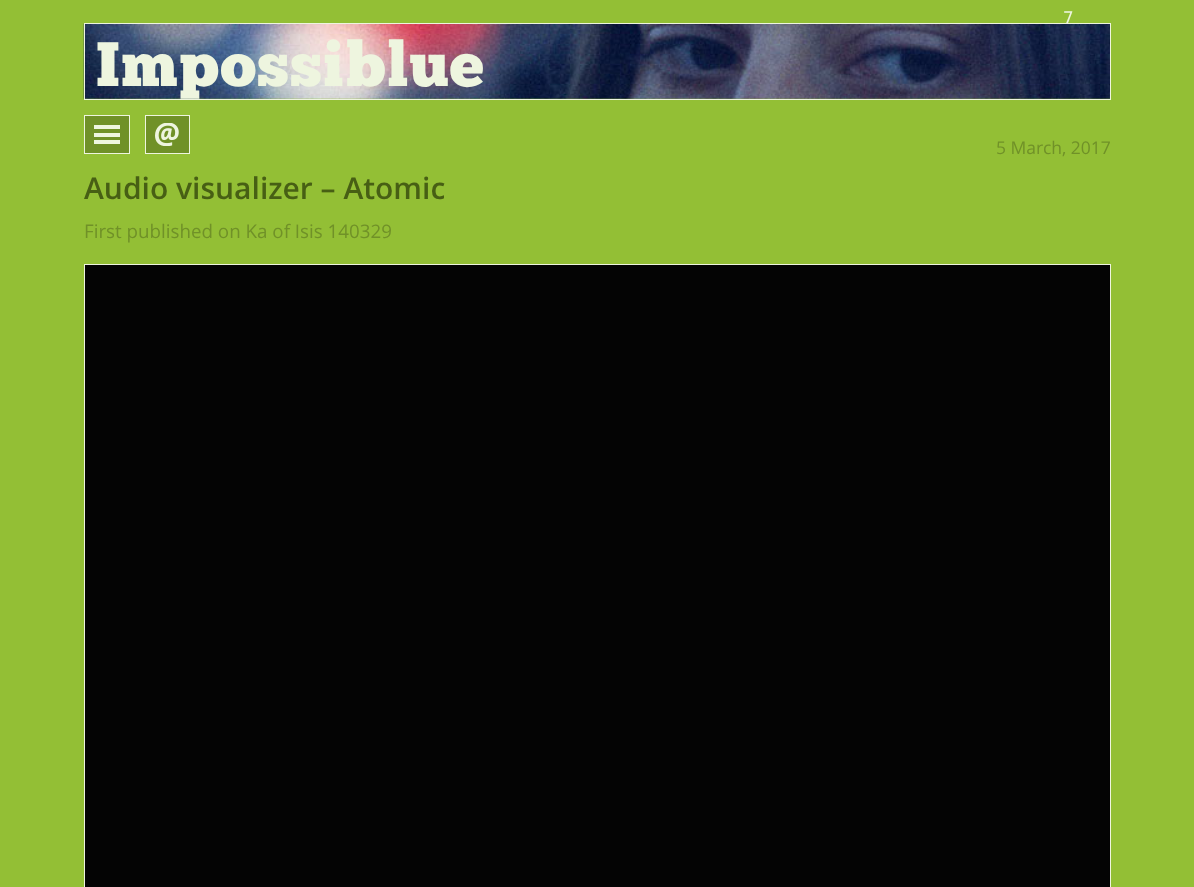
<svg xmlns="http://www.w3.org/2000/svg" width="1194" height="887">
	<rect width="100%" height="100%" fill="#93BF35" />
	<image x="83" y="23" width="1027" height="76" href="assets/img1.png" />
	<rect x="84.5" y="23.5" width="1026" height="76" fill="none" stroke="#EEF5DF" />
	<text x="96" y="86" font-family="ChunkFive" font-size="62.5" letter-spacing="1.25" fill="#EEF5DF">Impossiblue</text>
	<text x="1063" y="24" font-family="DejaVu Sans Mono" font-size="17.5" fill="#EEF5DF">7</text>
	<text x="996" y="154" font-family="Open Sans" font-size="17.5" fill="#709128">5 March, 2017</text>
	<rect x="84.5" y="115.5" width="45" height="38" fill="#709128" stroke="#EEF5DF" />
	<rect x="94" y="140" width="26" height="4" fill="#EEF5DF" />
	<rect x="94" y="133" width="26" height="4" fill="#EEF5DF" />
	<rect x="94" y="125" width="26" height="4" fill="#EEF5DF" />
	<rect x="146" y="116" width="43" height="37" fill="#709128" />
	<image x="155" y="123" width="24" height="23" href="assets/img2.png" />
	<rect x="145.5" y="115.5" width="44" height="38" fill="none" stroke="#EEF5DF" />
	<text x="84" y="199" font-family="Open Sans" font-size="30" font-weight="600" fill="#475F14">Audio visualizer – Atomic</text>
	<text x="84" y="238" font-family="Open Sans" font-size="18.75" fill="#709128">First published on Ka of Isis 140329</text>
	<rect x="84.5" y="264.5" width="1026" height="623" fill="none" stroke="#EEF5DF" />
	<rect x="85" y="265" width="1025" height="622" fill="#040404" />
</svg>
